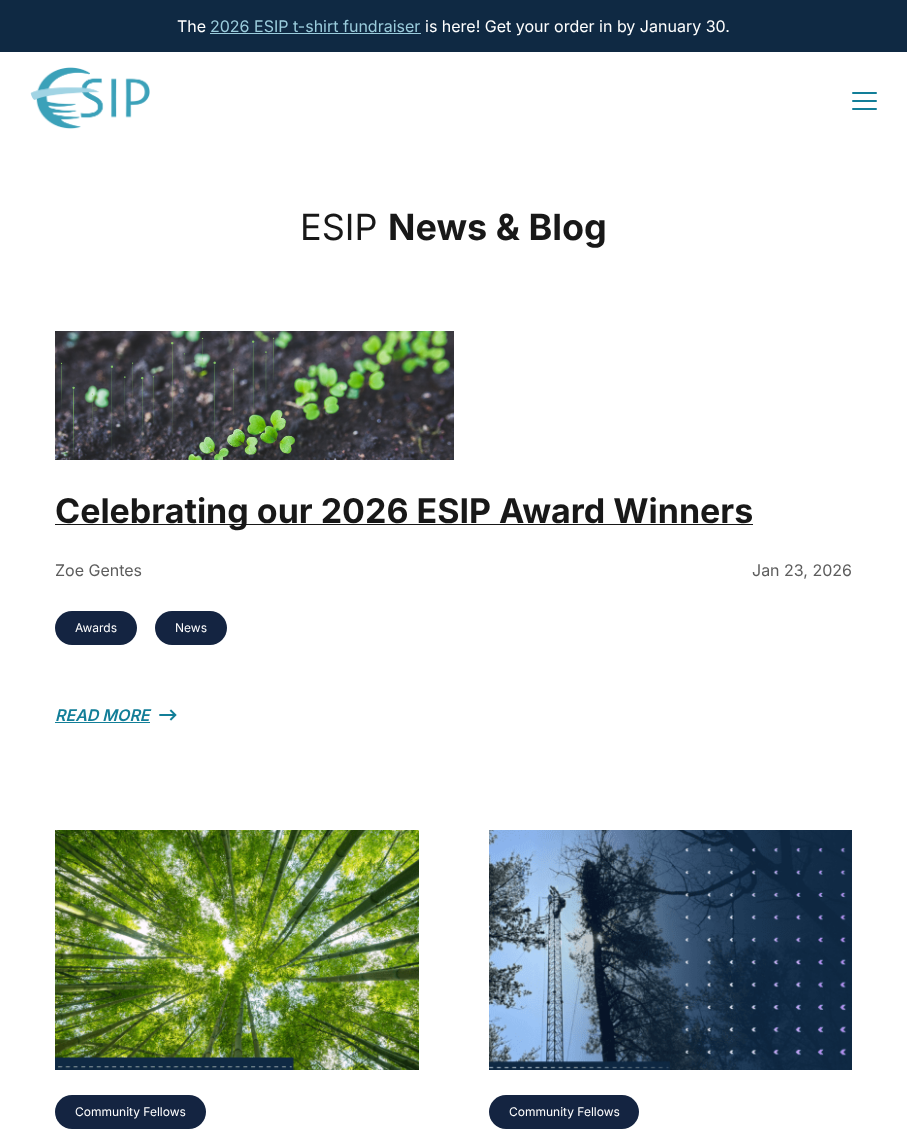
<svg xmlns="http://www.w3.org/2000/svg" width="907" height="1131">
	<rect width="100%" height="100%" fill="#FFFFFF" />
	<rect x="0" y="0" width="907" height="52" fill="#0F2943" />
	<text x="177" y="32" font-family="Inter" font-size="16" fill="#FFFFFF">The</text>
	<text x="210" y="32" font-family="Inter" font-size="16" fill="#9ACCDC">2026 ESIP t-shirt fundraiser</text>
	<rect x="210" y="33" width="211" height="1" fill="#9ACCDC" />
	<text x="425" y="32" font-family="Inter" font-size="16" fill="#FFFFFF">is here! Get your order in by January 30.</text>
	<image x="30" y="67" width="120" height="62" href="assets/img1.png" />
	<rect x="852" y="92" width="25" height="2" rx="1" fill="#127E98" />
	<rect x="852" y="100" width="25" height="2" rx="1" fill="#127E98" />
	<rect x="852" y="108" width="25" height="2" rx="1" fill="#127E98" />
	<text x="300" y="240" font-family="Inter" font-size="36" fill="#181818">ESIP</text>
	<text x="388" y="240" font-family="Inter" font-size="36" font-weight="700" fill="#181818">News &amp; Blog</text>
	<image x="55" y="331" width="399" height="129" href="assets/img2.png" />
	<rect x="55" y="524" width="698" height="1" fill="#181818" />
	<text x="55" y="523" font-family="Inter" font-size="34" font-weight="700" fill="#181818">Celebrating our 2026 ESIP Award Winners</text>
	<g font-family="Inter" font-size="16" fill="#5D5D5D">
		<text x="55" y="576">Zoe Gentes</text>
		<text x="752" y="576">Jan 23, 2026</text>
	</g>
	<rect x="55" y="611" width="82" height="34" rx="17" fill="#142441" />
	<text x="75" y="632" font-family="Inter" font-size="12" fill="#FFFFFF">Awards</text>
	<rect x="155" y="611" width="72" height="34" rx="17" fill="#142441" />
	<text x="175" y="632" font-family="Inter" font-size="12" fill="#FFFFFF">News</text>
	<text x="55" y="721" font-family="Inter" font-size="16" font-weight="600" font-style="italic" fill="#127E98">READ MORE</text>
	<rect x="55" y="722" width="95" height="1" fill="#127E98" />
	<image x="159" y="709" width="18" height="12" href="assets/img3.png" />
	<image x="55" y="830" width="364" height="240" href="assets/img4.png" />
	<path d="M115 799C120 799 124 801 126 804C138 817 156 825 176 825H408C413 825 417 827 419 831V799Z" fill="#FFFFFF" fill-rule="evenodd" />
	<rect x="55" y="1095" width="151" height="34" rx="17" fill="#142441" />
	<text x="75" y="1116" font-family="Inter" font-size="12" fill="#FFFFFF">Community Fellows</text>
	<image x="489" y="830" width="363" height="240" href="assets/img5.png" />
	<rect x="489" y="1095" width="150" height="34" rx="17" fill="#142441" />
	<text x="509" y="1116" font-family="Inter" font-size="12" fill="#FFFFFF">Community Fellows</text>
</svg>
